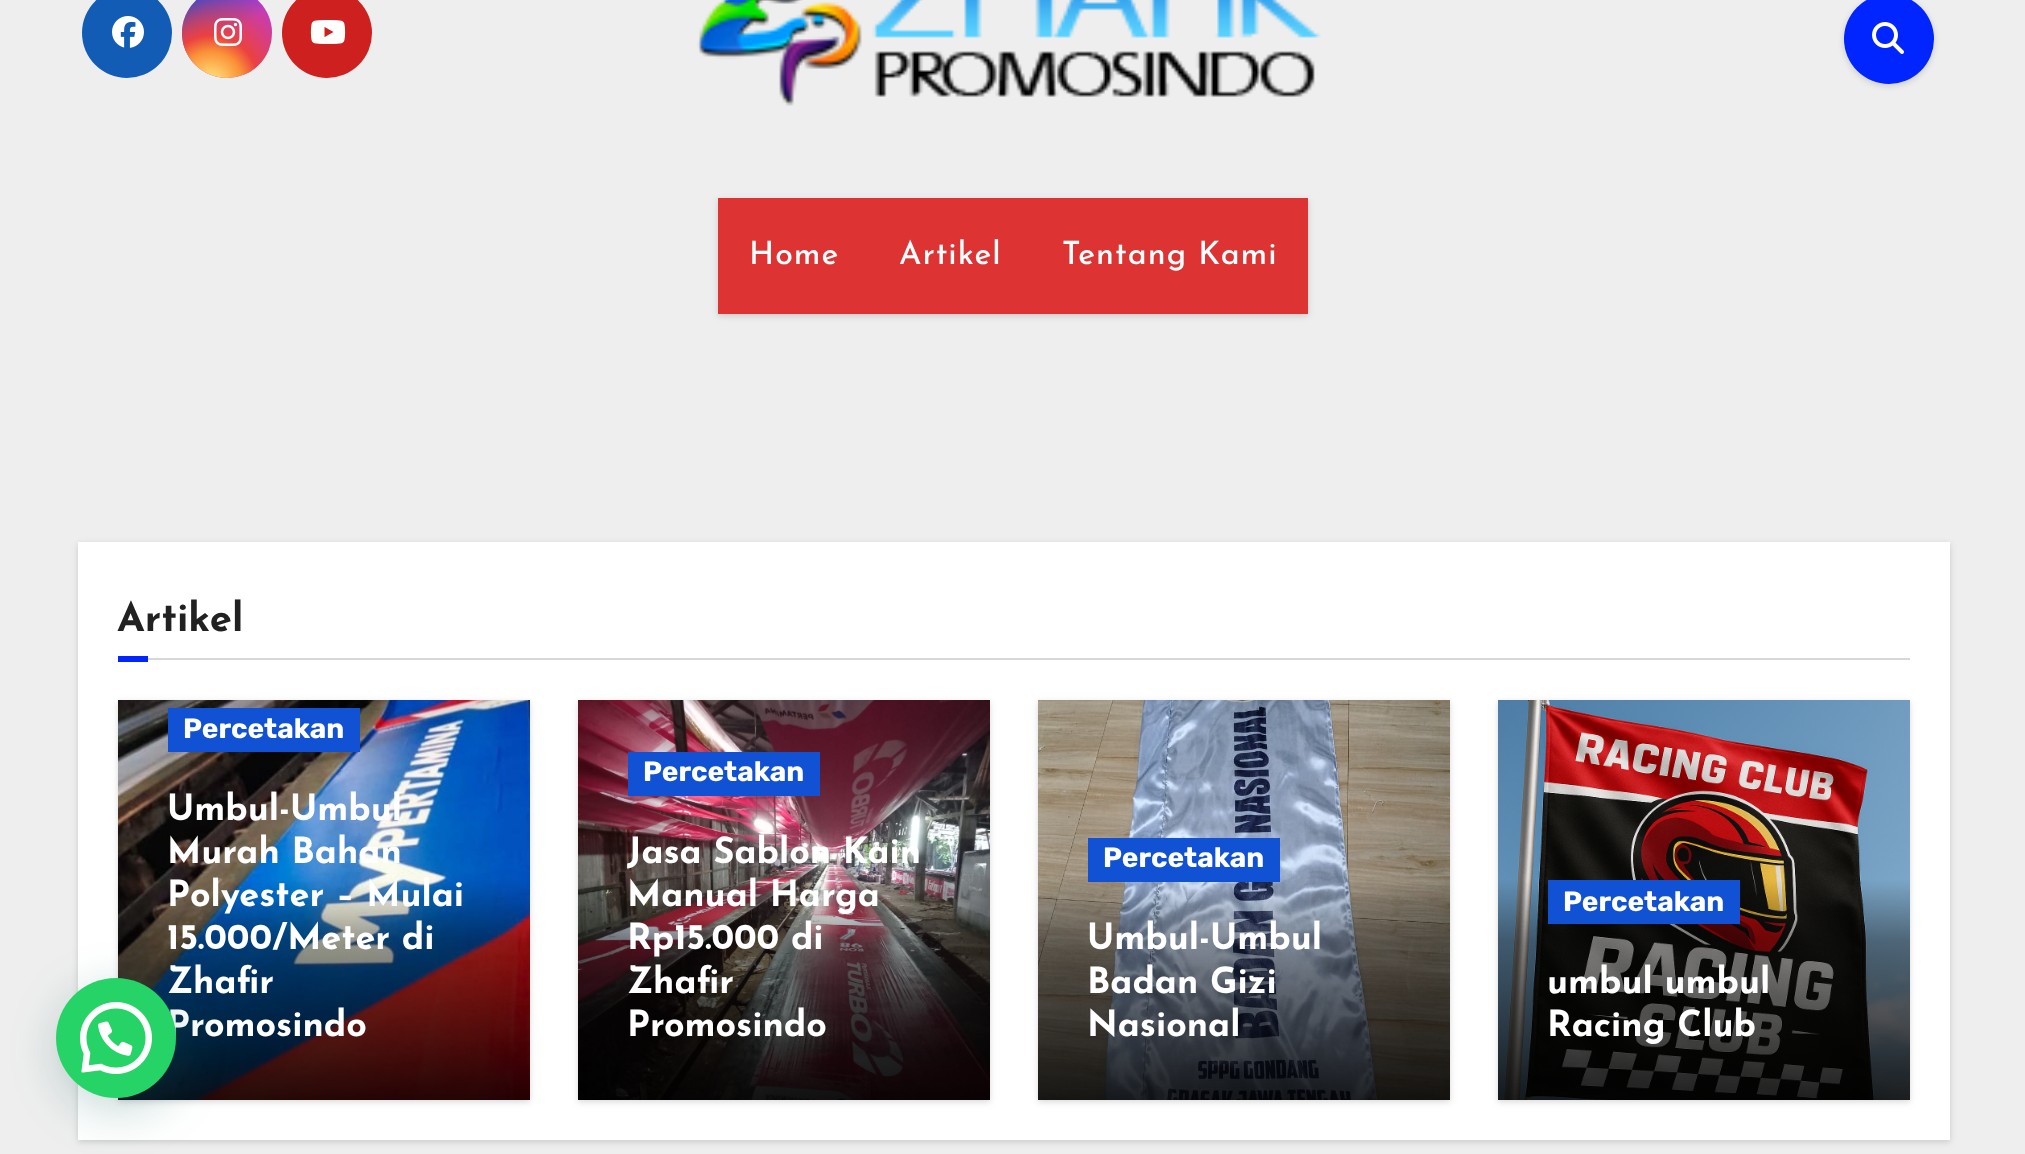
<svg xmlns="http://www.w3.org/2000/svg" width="2025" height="1154">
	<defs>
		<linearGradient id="g1" gradientUnits="userSpaceOnUse" x1="182" y1="-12" x2="272" y2="78"><stop offset="0.12" stop-color="#234BD7" /><stop offset="0.58" stop-color="#C33CBE" /></linearGradient>
		<radialGradient id="g2" gradientUnits="userSpaceOnUse" cx="211" cy="83" r="113"><stop offset="0" stop-color="#FFE17D" /><stop offset="0.1" stop-color="#FFCD69" /><stop offset="0.28" stop-color="#FA9137" /><stop offset="0.42" stop-color="#EB4141" /><stop offset="0.82" stop-color="#EB4141" stop-opacity="0" /></radialGradient>
	</defs>
	<rect width="100%" height="100%" fill="#EEEEEE" />
	<circle cx="127" cy="33" r="45" fill="#135CB6" />
	<image x="112" y="16" width="32" height="32" href="assets/img1.png" />
	<circle cx="227" cy="33" r="45" fill="url(#g1)" />
	<circle cx="227" cy="33" r="45" fill="url(#g2)" />
	<image x="214" y="18" width="28" height="28" href="assets/img2.png" />
	<circle cx="327" cy="33" r="45" fill="#CD201F" />
	<image x="310" y="20" width="36" height="24" href="assets/img3.png" />
	<image x="697" y="0" width="624" height="106" href="assets/img4.png" />
	<rect x="1844" y="-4" width="90" height="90" rx="45" fill="#000000" fill-opacity="0.15" filter="blur(3px)" />
	<circle cx="1889" cy="39" r="45" fill="#0025FF" />
	<image x="1872" y="22" width="32" height="32" href="assets/img5.png" />
	<rect x="718" y="200" width="590" height="116" fill="#000000" fill-opacity="0.15" filter="blur(3px)" />
	<rect x="718" y="198" width="590" height="116" fill="#DD3333" />
	<g font-family="Josefin Sans" font-size="32" font-weight="500" letter-spacing="1" fill="#FFFFFF">
		<text x="749" y="264">Home</text>
		<text x="899" y="264">Artikel</text>
		<text x="1062" y="264">Tentang Kami</text>
	</g>
	<rect x="78" y="544" width="1872" height="598" fill="#000000" fill-opacity="0.15" filter="blur(3px)" />
	<rect x="78" y="542" width="1872" height="598" fill="#FFFFFF" />
	<rect x="148" y="658" width="1762" height="2" fill="#D7D7D7" />
	<text x="117" y="631" font-family="Josefin Sans" font-size="40" font-weight="700" fill="#212121">Artikel</text>
	<rect x="118" y="656" width="30" height="6" fill="#0025FF" />
	<rect x="118" y="702" width="412" height="400" fill="#000000" fill-opacity="0.15" filter="blur(3px)" />
	<image x="118" y="700" width="412" height="400" href="assets/img6.png" />
	<rect x="168" y="708" width="192" height="44" fill="#1151D3" />
	<text x="183" y="738" font-family="Rubik" font-size="28" font-weight="700" fill="#FFFFFF">Percetakan</text>
	<g font-family="Josefin Sans" font-size="36" font-weight="700" fill="#FFFFFF">
		<text x="167" y="820">Umbul-Umbul</text>
		<text x="167" y="863">Murah Bahan</text>
		<text x="167" y="906">Polyester – Mulai</text>
		<text x="167" y="949">15.000/Meter di</text>
		<text x="167" y="993">Zhafir</text>
		<text x="167" y="1036">Promosindo</text>
	</g>
	<rect x="578" y="702" width="412" height="400" fill="#000000" fill-opacity="0.15" filter="blur(3px)" />
	<image x="578" y="700" width="412" height="400" href="assets/img7.png" />
	<rect x="628" y="752" width="192" height="44" fill="#1151D3" />
	<text x="643" y="781" font-family="Rubik" font-size="28" font-weight="700" fill="#FFFFFF">Percetakan</text>
	<g font-family="Josefin Sans" font-size="36" font-weight="700" fill="#FFFFFF">
		<text x="627" y="863">Jasa Sablon Kain</text>
		<text x="627" y="906">Manual Harga</text>
		<text x="627" y="949">Rp15.000 di</text>
		<text x="627" y="993">Zhafir</text>
		<text x="627" y="1036">Promosindo</text>
	</g>
	<rect x="1038" y="702" width="412" height="400" fill="#000000" fill-opacity="0.15" filter="blur(3px)" />
	<image x="1038" y="700" width="412" height="400" href="assets/img8.png" />
	<rect x="1088" y="838" width="192" height="44" fill="#1151D3" />
	<text x="1103" y="867" font-family="Rubik" font-size="28" font-weight="700" fill="#FFFFFF">Percetakan</text>
	<g font-family="Josefin Sans" font-size="36" font-weight="700" fill="#FFFFFF">
		<text x="1087" y="949">Umbul-Umbul</text>
		<text x="1087" y="993">Badan Gizi</text>
		<text x="1087" y="1036">Nasional</text>
	</g>
	<rect x="1498" y="702" width="412" height="400" fill="#000000" fill-opacity="0.15" filter="blur(3px)" />
	<image x="1498" y="700" width="412" height="400" href="assets/img9.png" />
	<rect x="1548" y="880" width="192" height="44" fill="#1151D3" />
	<text x="1563" y="911" font-family="Rubik" font-size="28" font-weight="700" fill="#FFFFFF">Percetakan</text>
	<g font-family="Josefin Sans" font-size="36" font-weight="700" fill="#FFFFFF">
		<text x="1547" y="993">umbul umbul</text>
		<text x="1547" y="1036">Racing Club</text>
	</g>
	<rect x="58" y="990" width="120" height="120" rx="60" fill="#075E54" fill-opacity="0.24" filter="blur(24px)" />
	<circle cx="116" cy="1038" r="60" fill="#25D366" />
	<image x="80" y="1002" width="72" height="72" href="assets/img10.png" />
</svg>
